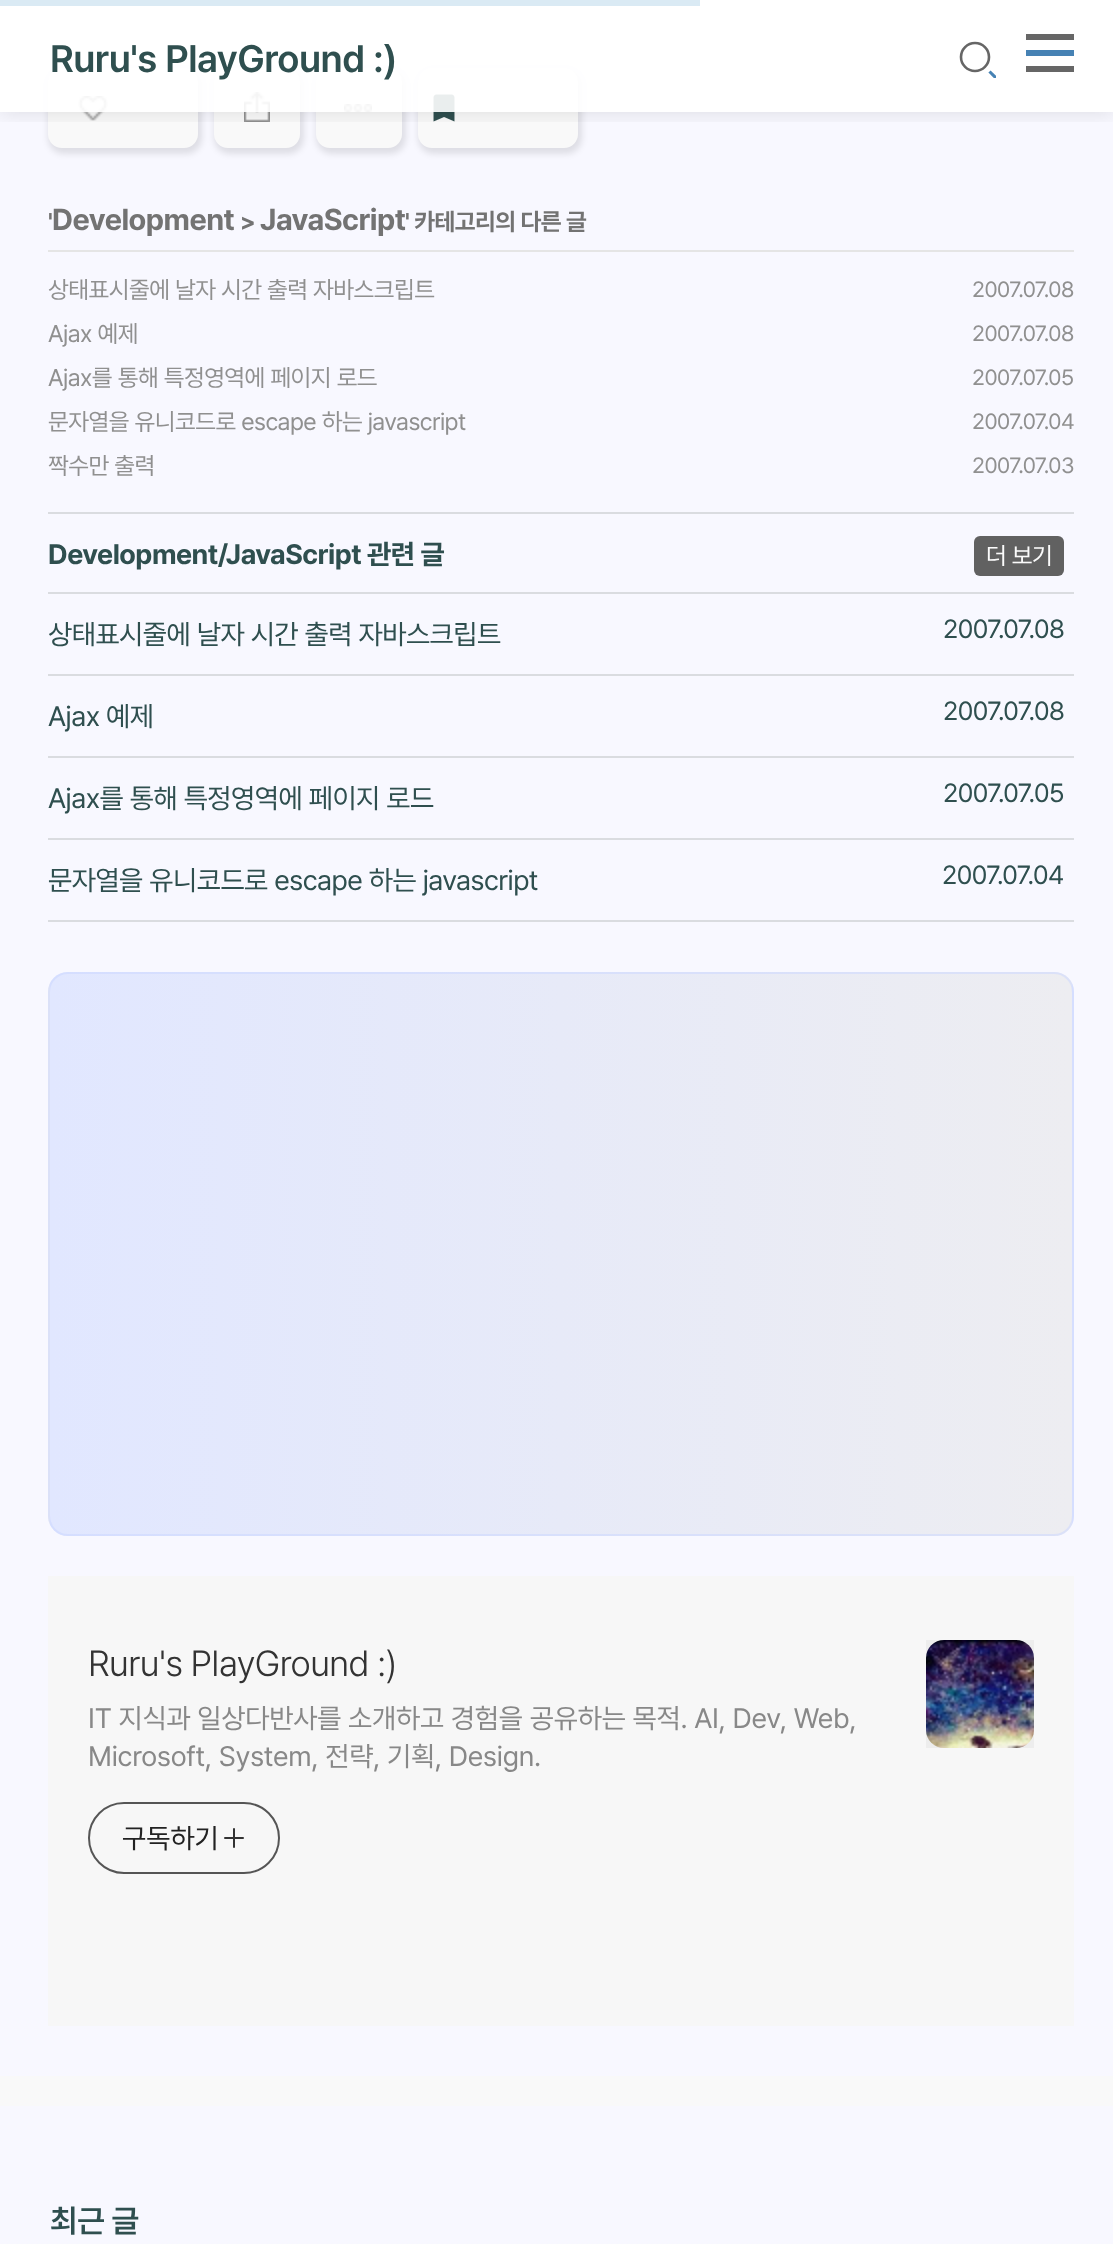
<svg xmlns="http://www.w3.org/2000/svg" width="1113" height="2244">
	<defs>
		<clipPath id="clip1"><rect x="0" y="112" width="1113" height="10" /></clipPath>
		<clipPath id="clip2"><rect x="956" y="38" width="40" height="40" /></clipPath>
		<clipPath id="clip3"><rect x="48" y="972" width="1026" height="564" rx="20" /></clipPath>
		<linearGradient id="g1" gradientUnits="userSpaceOnUse" x1="50" y1="1254" x2="-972" y2="1254"><stop offset="0" stop-color="#EDEDF1" /><stop offset="1" stop-color="#E1E7FF" /></linearGradient>
		<linearGradient id="g2" gradientUnits="userSpaceOnUse" x1="1072" y1="1254" x2="50" y2="1254"><stop offset="0" stop-color="#EDEDF1" /><stop offset="1" stop-color="#E1E7FF" /></linearGradient>
		<linearGradient id="g3" gradientUnits="userSpaceOnUse" x1="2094" y1="1254" x2="1072" y2="1254"><stop offset="0" stop-color="#EDEDF1" /><stop offset="1" stop-color="#E1E7FF" /></linearGradient>
	</defs>
	<rect width="100%" height="100%" fill="#F8F8FF" />
	<rect x="48" y="70" width="154" height="84" rx="16" fill="#000000" fill-opacity="0.1" filter="blur(3px)" />
	<rect x="48" y="68" width="150" height="80" rx="14" fill="#F9F9F9" />
	<image x="78" y="96" width="30" height="25" href="assets/img1.png" />
	<rect x="214" y="70" width="90" height="84" rx="16" fill="#000000" fill-opacity="0.1" filter="blur(3px)" />
	<rect x="214" y="68" width="86" height="80" rx="14" fill="#F9F9F9" />
	<image x="244" y="92" width="26" height="30" href="assets/img2.png" />
	<rect x="316" y="70" width="90" height="84" rx="16" fill="#000000" fill-opacity="0.1" filter="blur(3px)" />
	<rect x="316" y="68" width="86" height="80" rx="14" fill="#F9F9F9" />
	<image x="344" y="104" width="28" height="8" href="assets/img3.png" />
	<rect x="418" y="70" width="164" height="84" rx="16" fill="#000000" fill-opacity="0.1" filter="blur(3px)" />
	<rect x="418" y="68" width="160" height="80" rx="14" fill="#F9F9F9" />
	<image x="433" y="94" width="22" height="28" href="assets/img4.png" />
	<g clip-path="url(#clip1)">
		<rect x="0" y="2" width="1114" height="112" fill="#000000" fill-opacity="0.1" filter="blur(10px)" />
	</g>
	<rect x="0" y="0" width="1113" height="112" fill="#FFFFFF" fill-opacity="0.9" />
	<rect x="0" y="0" width="700" height="6" fill="#DAEAF4" />
	<text x="50" y="72" font-family="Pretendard" font-size="38" font-weight="600" letter-spacing="-0.5" fill="#2F4F4F">Ruru's PlayGround :)</text>
	<circle cx="975" cy="57" r="14" fill="none" stroke="#666666" stroke-width="2.6" />
	<g clip-path="url(#clip2)">
		<path d="M996 78L989.5 71.5" fill="none" stroke="#4682B4" stroke-width="3.1" />
	</g>
	<rect x="1026" y="34" width="48" height="6" fill="#666666" />
	<rect x="1026" y="50" width="48" height="6" fill="#4682B4" />
	<rect x="1026" y="66" width="48" height="6" fill="#666666" />
	<rect x="48" y="250" width="1026" height="2" fill="#E5E5E5" />
	<text x="48" y="230" font-family="Pretendard" font-size="24" font-weight="700" letter-spacing="-0.5" fill="#737373">'</text>
	<text x="52" y="230" font-family="Pretendard" font-size="30" font-weight="700" letter-spacing="-0.5" fill="#737373">Development</text>
	<text x="240" y="230" font-family="Pretendard" font-size="24" font-weight="700" letter-spacing="-0.5" fill="#737373">&gt;</text>
	<text x="260" y="230" font-family="Pretendard" font-size="30" font-weight="700" letter-spacing="-0.5" fill="#737373">JavaScript</text>
	<text x="405" y="230" font-family="Pretendard" font-size="24" font-weight="700" letter-spacing="-0.5" fill="#737373">' 카테고리의 다른 글</text>
	<text x="48" y="298" font-family="Pretendard" font-size="24" letter-spacing="-0.5" fill="#909090">상태표시줄에 날자 시간 출력 자바스크립트</text>
	<text x="972" y="297" font-family="Pretendard" font-size="22" letter-spacing="-0.5" fill="#909090">2007.07.08</text>
	<text x="48" y="342" font-family="Pretendard" font-size="24" letter-spacing="-0.5" fill="#909090">Ajax 예제</text>
	<text x="972" y="341" font-family="Pretendard" font-size="22" letter-spacing="-0.5" fill="#909090">2007.07.08</text>
	<text x="48" y="386" font-family="Pretendard" font-size="24" letter-spacing="-0.5" fill="#909090">Ajax를 통해 특정영역에 페이지 로드</text>
	<text x="972" y="385" font-family="Pretendard" font-size="22" letter-spacing="-0.5" fill="#909090">2007.07.05</text>
	<text x="48" y="430" font-family="Pretendard" font-size="24" letter-spacing="-0.5" fill="#909090">문자열을 유니코드로 escape 하는 javascript</text>
	<text x="972" y="429" font-family="Pretendard" font-size="22" letter-spacing="-0.5" fill="#909090">2007.07.04</text>
	<text x="48" y="474" font-family="Pretendard" font-size="24" letter-spacing="-0.5" fill="#909090">짝수만 출력</text>
	<text x="972" y="473" font-family="Pretendard" font-size="22" letter-spacing="-0.5" fill="#909090">2007.07.03</text>
	<rect x="48" y="512" width="1026" height="2" fill="#DADCE0" />
	<text x="48" y="564" font-family="Pretendard" font-size="28" font-weight="700" letter-spacing="-0.5" fill="#2F4F4F">Development/JavaScript 관련 글</text>
	<rect x="974" y="536" width="90" height="40" rx="6" fill="#616161" />
	<text x="986" y="564" font-family="Pretendard" font-size="24" letter-spacing="-0.5" fill="#FBFBFB">더 보기</text>
	<rect x="48" y="592" width="1026" height="2" fill="#DADCE0" />
	<rect x="48" y="674" width="1026" height="2" fill="#DADCE0" />
	<text x="48" y="644" font-family="Pretendard" font-size="28" letter-spacing="-0.5" fill="#2F4F4F">상태표시줄에 날자 시간 출력 자바스크립트</text>
	<text x="943" y="638" font-family="Pretendard" font-size="26" letter-spacing="-0.5" fill="#2F4F4F">2007.07.08</text>
	<rect x="48" y="756" width="1026" height="2" fill="#DADCE0" />
	<text x="48" y="726" font-family="Pretendard" font-size="28" letter-spacing="-0.5" fill="#2F4F4F">Ajax 예제</text>
	<text x="943" y="720" font-family="Pretendard" font-size="26" letter-spacing="-0.5" fill="#2F4F4F">2007.07.08</text>
	<rect x="48" y="838" width="1026" height="2" fill="#DADCE0" />
	<text x="48" y="808" font-family="Pretendard" font-size="28" letter-spacing="-0.5" fill="#2F4F4F">Ajax를 통해 특정영역에 페이지 로드</text>
	<text x="943" y="802" font-family="Pretendard" font-size="26" letter-spacing="-0.5" fill="#2F4F4F">2007.07.05</text>
	<rect x="48" y="920" width="1026" height="2" fill="#DADCE0" />
	<text x="48" y="890" font-family="Pretendard" font-size="28" letter-spacing="-0.5" fill="#2F4F4F">문자열을 유니코드로 escape 하는 javascript</text>
	<text x="942" y="884" font-family="Pretendard" font-size="26" letter-spacing="-0.5" fill="#2F4F4F">2007.07.04</text>
	<g clip-path="url(#clip3)">
		<rect x="48" y="983" width="2" height="542" fill="url(#g1)" />
		<rect x="50" y="972" width="1022" height="564" fill="url(#g2)" />
		<rect x="1072" y="983" width="2" height="542" fill="url(#g3)" />
	</g>
	<rect x="49" y="973" width="1024" height="562" rx="19" fill="none" stroke="#C9D6FF" stroke-opacity="0.5" stroke-width="2" />
	<rect x="48" y="1576" width="1026" height="450" fill="#F7F7F7" />
	<text x="88" y="1676" font-family="Pretendard" font-size="36" font-weight="300" letter-spacing="-0.5" fill="#333333">Ruru's PlayGround :)</text>
	<g font-family="Pretendard" font-size="28" letter-spacing="-0.2" fill="#888888">
		<text x="88" y="1728">IT 지식과 일상다반사를 소개하고 경험을 공유하는 목적. AI, Dev, Web,</text>
		<text x="88" y="1766">Microsoft, System, 전략, 기획, Design.</text>
	</g>
	<rect x="89" y="1803" width="190" height="70" rx="35" fill="none" stroke="#555555" stroke-width="2" />
	<text x="122" y="1848" font-family="Pretendard" font-size="28" fill="#222222">구독하기</text>
	<image x="224" y="1828" width="20" height="20" href="assets/img5.png" />
	<image x="926" y="1640" width="108" height="108" href="assets/img6.png" />
	<rect x="926" y="1640" width="108" height="108" fill="#000000" fill-opacity="0.04" />
	<rect x="0" y="2076" width="1113" height="30" fill="#F9F9F9" />
	<text x="50" y="2232" font-family="Pretendard" font-size="32" font-weight="600" letter-spacing="-0.5" fill="#2F4F4F">최근 글</text>
</svg>
